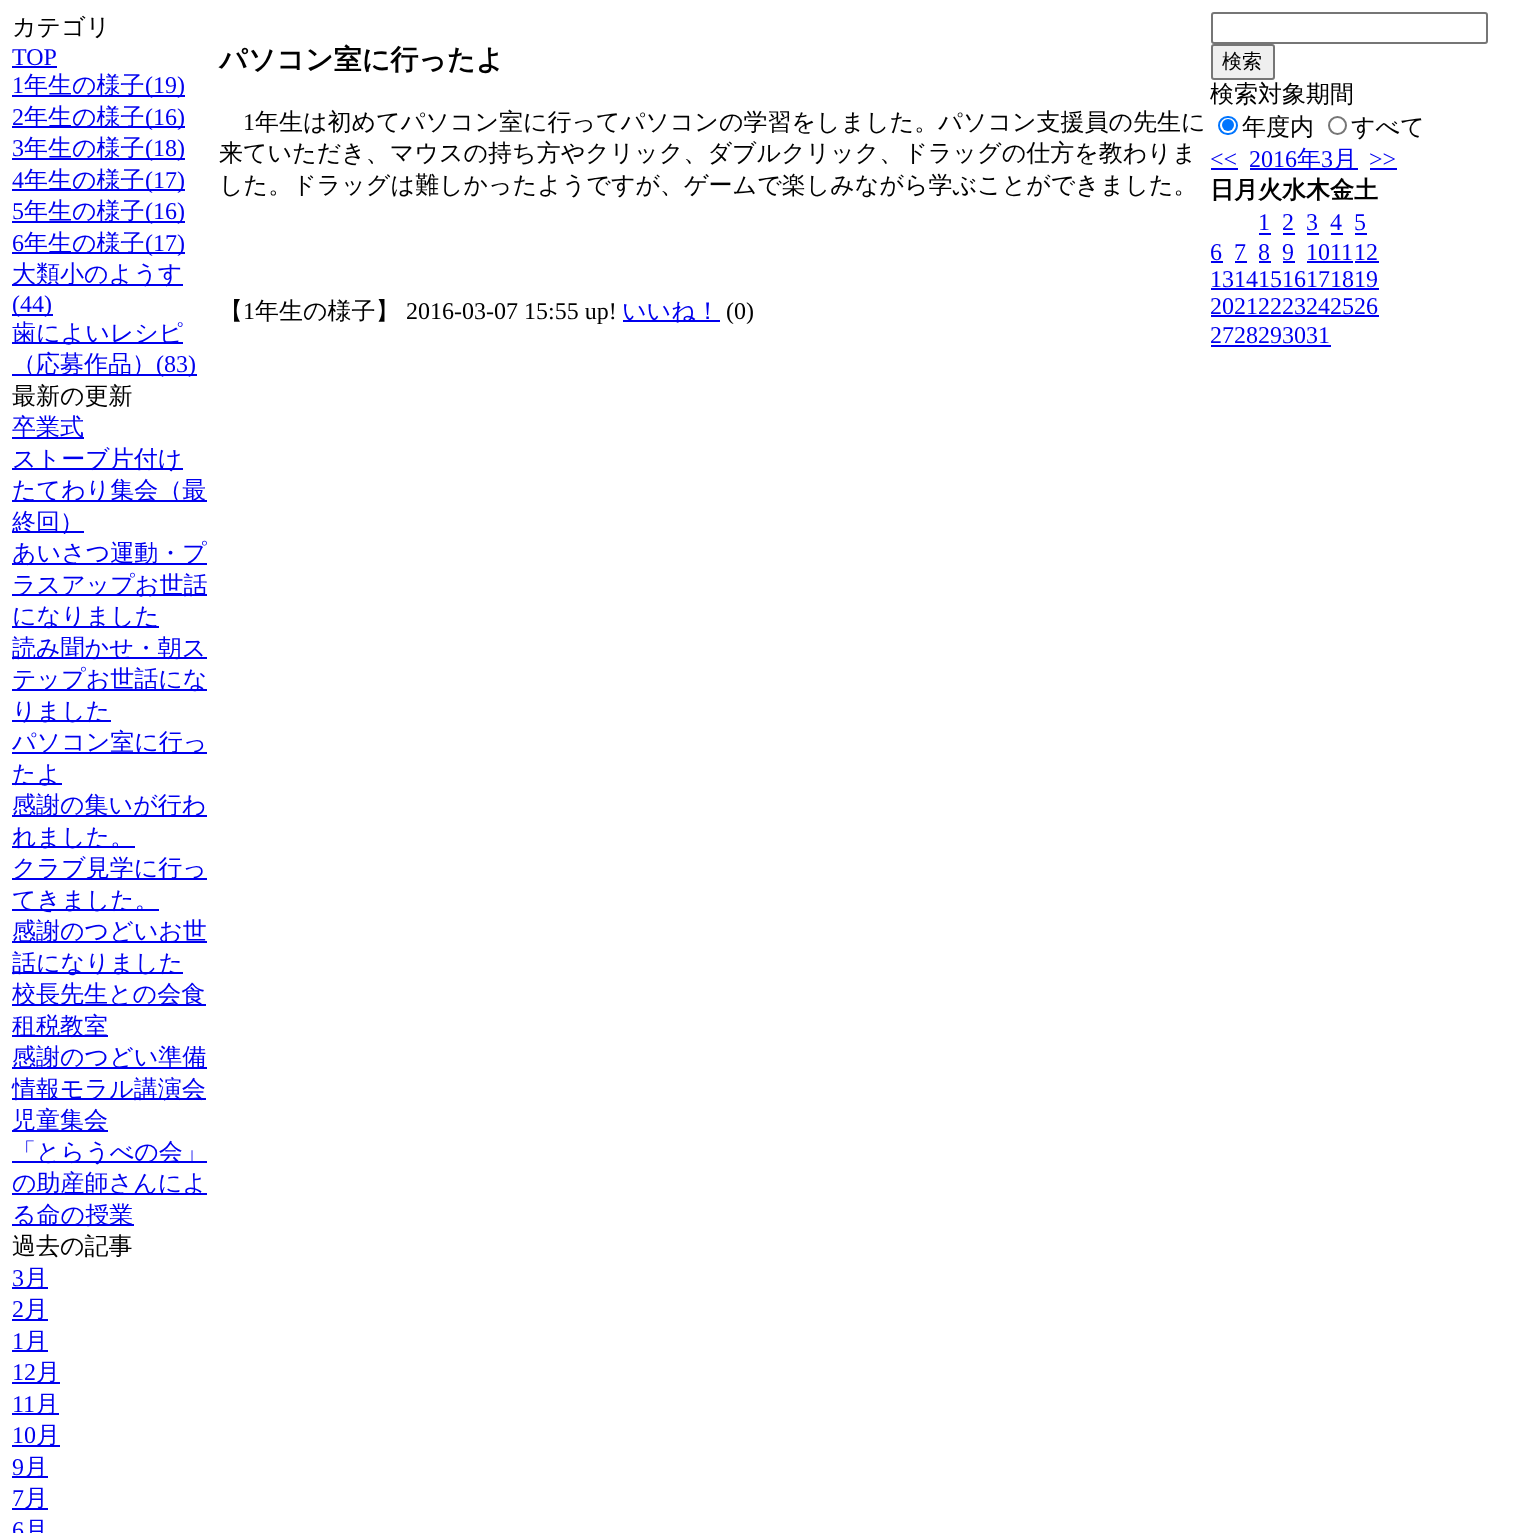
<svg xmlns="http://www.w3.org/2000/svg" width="1522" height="1533">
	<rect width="100%" height="100%" fill="#FFFFFF" />
	<text x="12" y="35" font-family="WenQuanYi Zen Hei" font-size="24" font-weight="500" fill="#000000">カテゴリ</text>
	<text x="12" y="65" font-family="Liberation Serif" font-size="24" fill="#0000EE">TOP</text>
	<rect x="12" y="66" width="45" height="2" fill="#0000EE" />
	<text x="12" y="93" font-family="Liberation Serif" font-size="24" fill="#0000EE">1</text>
	<rect x="12" y="95" width="173" height="2" fill="#0000EE" />
	<text x="24" y="93" font-family="WenQuanYi Zen Hei" font-size="24" font-weight="500" fill="#0000EE">年生の様子</text>
	<g font-family="Liberation Serif" font-size="24" fill="#0000EE">
		<text x="145" y="93">(19)</text>
		<text x="12" y="125">2</text>
	</g>
	<rect x="12" y="126" width="173" height="2" fill="#0000EE" />
	<text x="24" y="125" font-family="WenQuanYi Zen Hei" font-size="24" font-weight="500" fill="#0000EE">年生の様子</text>
	<g font-family="Liberation Serif" font-size="24" fill="#0000EE">
		<text x="145" y="125">(16)</text>
		<text x="12" y="156">3</text>
	</g>
	<rect x="12" y="158" width="173" height="2" fill="#0000EE" />
	<text x="24" y="156" font-family="WenQuanYi Zen Hei" font-size="24" font-weight="500" fill="#0000EE">年生の様子</text>
	<g font-family="Liberation Serif" font-size="24" fill="#0000EE">
		<text x="145" y="156">(18)</text>
		<text x="12" y="188">4</text>
	</g>
	<rect x="12" y="189" width="173" height="2" fill="#0000EE" />
	<text x="24" y="188" font-family="WenQuanYi Zen Hei" font-size="24" font-weight="500" fill="#0000EE">年生の様子</text>
	<g font-family="Liberation Serif" font-size="24" fill="#0000EE">
		<text x="145" y="188">(17)</text>
		<text x="12" y="219">5</text>
	</g>
	<rect x="12" y="221" width="173" height="2" fill="#0000EE" />
	<text x="24" y="219" font-family="WenQuanYi Zen Hei" font-size="24" font-weight="500" fill="#0000EE">年生の様子</text>
	<g font-family="Liberation Serif" font-size="24" fill="#0000EE">
		<text x="145" y="219">(16)</text>
		<text x="12" y="251">6</text>
	</g>
	<rect x="12" y="252" width="173" height="2" fill="#0000EE" />
	<text x="24" y="251" font-family="WenQuanYi Zen Hei" font-size="24" font-weight="500" fill="#0000EE">年生の様子</text>
	<text x="145" y="251" font-family="Liberation Serif" font-size="24" fill="#0000EE">(17)</text>
	<rect x="12" y="284" width="171" height="2" fill="#0000EE" />
	<text x="12" y="282" font-family="WenQuanYi Zen Hei" font-size="24" font-weight="500" fill="#0000EE">大類小のようす</text>
	<rect x="12" y="314" width="41" height="2" fill="#0000EE" />
	<text x="12" y="312" font-family="Liberation Serif" font-size="24" fill="#0000EE">(44)</text>
	<rect x="12" y="342" width="171" height="2" fill="#0000EE" />
	<text x="12" y="341" font-family="WenQuanYi Zen Hei" font-size="24" font-weight="500" fill="#0000EE">歯によいレシピ</text>
	<rect x="12" y="374" width="185" height="2" fill="#0000EE" />
	<text x="12" y="372" font-family="WenQuanYi Zen Hei" font-size="24" font-weight="500" fill="#0000EE">（応募作品）</text>
	<text x="156" y="372" font-family="Liberation Serif" font-size="24" fill="#0000EE">(83)</text>
	<text x="12" y="404" font-family="WenQuanYi Zen Hei" font-size="24" font-weight="500" fill="#000000">最新の更新</text>
	<rect x="12" y="437" width="72" height="2" fill="#0000EE" />
	<text x="12" y="435" font-family="WenQuanYi Zen Hei" font-size="24" font-weight="500" fill="#0000EE">卒業式</text>
	<rect x="12" y="468" width="171" height="2" fill="#0000EE" />
	<text x="12" y="467" font-family="WenQuanYi Zen Hei" font-size="24" font-weight="500" fill="#0000EE">ストーブ片付け</text>
	<rect x="12" y="500" width="195" height="2" fill="#0000EE" />
	<text x="12" y="498" font-family="WenQuanYi Zen Hei" font-size="24" font-weight="500" fill="#0000EE">たてわり集会（最</text>
	<rect x="12" y="531" width="72" height="2" fill="#0000EE" />
	<text x="12" y="530" font-family="WenQuanYi Zen Hei" font-size="24" font-weight="500" fill="#0000EE">終回）</text>
	<rect x="12" y="563" width="195" height="2" fill="#0000EE" />
	<text x="12" y="561" font-family="WenQuanYi Zen Hei" font-size="24" font-weight="500" fill="#0000EE">あいさつ運動・プ</text>
	<rect x="12" y="594" width="195" height="2" fill="#0000EE" />
	<text x="12" y="593" font-family="WenQuanYi Zen Hei" font-size="24" font-weight="500" fill="#0000EE">ラスアップお世話</text>
	<rect x="12" y="626" width="147" height="2" fill="#0000EE" />
	<text x="12" y="624" font-family="WenQuanYi Zen Hei" font-size="24" font-weight="500" fill="#0000EE">になりました</text>
	<rect x="12" y="657" width="195" height="2" fill="#0000EE" />
	<text x="12" y="656" font-family="WenQuanYi Zen Hei" font-size="24" font-weight="500" fill="#0000EE">読み聞かせ・朝ス</text>
	<rect x="12" y="689" width="195" height="2" fill="#0000EE" />
	<text x="12" y="687" font-family="WenQuanYi Zen Hei" font-size="24" font-weight="500" fill="#0000EE">テップお世話にな</text>
	<rect x="12" y="720" width="99" height="2" fill="#0000EE" />
	<text x="12" y="719" font-family="WenQuanYi Zen Hei" font-size="24" font-weight="500" fill="#0000EE">りました</text>
	<rect x="12" y="752" width="195" height="2" fill="#0000EE" />
	<text x="12" y="750" font-family="WenQuanYi Zen Hei" font-size="24" font-weight="500" fill="#0000EE">パソコン室に行っ</text>
	<rect x="12" y="783" width="50" height="2" fill="#0000EE" />
	<text x="12" y="782" font-family="WenQuanYi Zen Hei" font-size="24" font-weight="500" fill="#0000EE">たよ</text>
	<rect x="12" y="815" width="195" height="2" fill="#0000EE" />
	<text x="12" y="813" font-family="WenQuanYi Zen Hei" font-size="24" font-weight="500" fill="#0000EE">感謝の集いが行わ</text>
	<rect x="12" y="846" width="123" height="2" fill="#0000EE" />
	<text x="12" y="845" font-family="WenQuanYi Zen Hei" font-size="24" font-weight="500" fill="#0000EE">れました。</text>
	<rect x="12" y="878" width="195" height="2" fill="#0000EE" />
	<text x="12" y="876" font-family="WenQuanYi Zen Hei" font-size="24" font-weight="500" fill="#0000EE">クラブ見学に行っ</text>
	<rect x="12" y="909" width="147" height="2" fill="#0000EE" />
	<text x="12" y="908" font-family="WenQuanYi Zen Hei" font-size="24" font-weight="500" fill="#0000EE">てきました。</text>
	<rect x="12" y="941" width="195" height="2" fill="#0000EE" />
	<text x="12" y="939" font-family="WenQuanYi Zen Hei" font-size="24" font-weight="500" fill="#0000EE">感謝のつどいお世</text>
	<rect x="12" y="972" width="171" height="2" fill="#0000EE" />
	<text x="12" y="971" font-family="WenQuanYi Zen Hei" font-size="24" font-weight="500" fill="#0000EE">話になりました</text>
	<rect x="12" y="1004" width="194" height="2" fill="#0000EE" />
	<text x="12" y="1002" font-family="WenQuanYi Zen Hei" font-size="24" font-weight="500" fill="#0000EE">校長先生との会食</text>
	<rect x="12" y="1035" width="96" height="2" fill="#0000EE" />
	<text x="12" y="1034" font-family="WenQuanYi Zen Hei" font-size="24" font-weight="500" fill="#0000EE">租税教室</text>
	<rect x="12" y="1067" width="195" height="2" fill="#0000EE" />
	<text x="12" y="1065" font-family="WenQuanYi Zen Hei" font-size="24" font-weight="500" fill="#0000EE">感謝のつどい準備</text>
	<rect x="12" y="1098" width="194" height="2" fill="#0000EE" />
	<text x="12" y="1097" font-family="WenQuanYi Zen Hei" font-size="24" font-weight="500" fill="#0000EE">情報モラル講演会</text>
	<rect x="12" y="1130" width="96" height="2" fill="#0000EE" />
	<text x="12" y="1128" font-family="WenQuanYi Zen Hei" font-size="24" font-weight="500" fill="#0000EE">児童集会</text>
	<rect x="12" y="1161" width="195" height="2" fill="#0000EE" />
	<text x="12" y="1160" font-family="WenQuanYi Zen Hei" font-size="24" font-weight="500" fill="#0000EE">「とらうべの会」</text>
	<rect x="12" y="1193" width="195" height="2" fill="#0000EE" />
	<text x="12" y="1191" font-family="WenQuanYi Zen Hei" font-size="24" font-weight="500" fill="#0000EE">の助産師さんによ</text>
	<rect x="12" y="1224" width="122" height="2" fill="#0000EE" />
	<text x="12" y="1223" font-family="WenQuanYi Zen Hei" font-size="24" font-weight="500" fill="#0000EE">る命の授業</text>
	<text x="12" y="1254" font-family="WenQuanYi Zen Hei" font-size="24" font-weight="500" fill="#000000">過去の記事</text>
	<text x="12" y="1286" font-family="Liberation Serif" font-size="24" fill="#0000EE">3</text>
	<rect x="12" y="1287" width="36" height="2" fill="#0000EE" />
	<text x="24" y="1286" font-family="WenQuanYi Zen Hei" font-size="24" font-weight="500" fill="#0000EE">月</text>
	<text x="12" y="1317" font-family="Liberation Serif" font-size="24" fill="#0000EE">2</text>
	<rect x="12" y="1319" width="36" height="2" fill="#0000EE" />
	<text x="24" y="1317" font-family="WenQuanYi Zen Hei" font-size="24" font-weight="500" fill="#0000EE">月</text>
	<text x="12" y="1349" font-family="Liberation Serif" font-size="24" fill="#0000EE">1</text>
	<rect x="12" y="1350" width="36" height="2" fill="#0000EE" />
	<text x="24" y="1349" font-family="WenQuanYi Zen Hei" font-size="24" font-weight="500" fill="#0000EE">月</text>
	<text x="12" y="1380" font-family="Liberation Serif" font-size="24" fill="#0000EE">12</text>
	<rect x="12" y="1382" width="48" height="2" fill="#0000EE" />
	<text x="36" y="1380" font-family="WenQuanYi Zen Hei" font-size="24" font-weight="500" fill="#0000EE">月</text>
	<text x="12" y="1412" font-family="Liberation Serif" font-size="24" fill="#0000EE">11</text>
	<rect x="12" y="1413" width="47" height="2" fill="#0000EE" />
	<text x="35" y="1412" font-family="WenQuanYi Zen Hei" font-size="24" font-weight="500" fill="#0000EE">月</text>
	<text x="12" y="1443" font-family="Liberation Serif" font-size="24" fill="#0000EE">10</text>
	<rect x="12" y="1445" width="48" height="2" fill="#0000EE" />
	<text x="36" y="1443" font-family="WenQuanYi Zen Hei" font-size="24" font-weight="500" fill="#0000EE">月</text>
	<text x="12" y="1475" font-family="Liberation Serif" font-size="24" fill="#0000EE">9</text>
	<rect x="12" y="1476" width="36" height="2" fill="#0000EE" />
	<text x="24" y="1475" font-family="WenQuanYi Zen Hei" font-size="24" font-weight="500" fill="#0000EE">月</text>
	<text x="12" y="1506" font-family="Liberation Serif" font-size="24" fill="#0000EE">7</text>
	<rect x="12" y="1508" width="36" height="2" fill="#0000EE" />
	<text x="24" y="1506" font-family="WenQuanYi Zen Hei" font-size="24" font-weight="500" fill="#0000EE">月</text>
	<text x="12" y="1538" font-family="Liberation Serif" font-size="24" fill="#0000EE">6</text>
	<text x="24" y="1538" font-family="WenQuanYi Zen Hei" font-size="24" font-weight="500" fill="#0000EE">月</text>
	<text x="219" y="69" font-family="WenQuanYi Zen Hei" font-size="28" font-weight="700" fill="#000000">パソコン室に行ったよ</text>
	<text x="243" y="130" font-family="Liberation Serif" font-size="24" fill="#000000">1</text>
	<g font-family="WenQuanYi Zen Hei" font-size="24" font-weight="500" fill="#000000">
		<text x="255" y="130">年生は初めてパソコン室に行ってパソコンの学習をしました。パソコン支援員の先生に</text>
		<text x="219" y="161">来ていただき、マウスの持ち方やクリック、ダブルクリック、ドラッグの仕方を教わりま</text>
		<text x="219" y="193">した。ドラッグは難しかったようですが、ゲームで楽しみながら学ぶことができました。</text>
		<text x="219" y="319">【</text>
	</g>
	<text x="243" y="319" font-family="Liberation Serif" font-size="24" fill="#000000">1</text>
	<text x="255" y="319" font-family="WenQuanYi Zen Hei" font-size="24" font-weight="500" fill="#000000">年生の様子】</text>
	<text x="406" y="319" font-family="Liberation Serif" font-size="24" fill="#000000">2016-03-07 15:55 up!</text>
	<rect x="623" y="320" width="97" height="2" fill="#0000EE" />
	<text x="622" y="319" font-family="WenQuanYi Zen Hei" font-size="24" font-weight="500" fill="#0000EE">いいね！</text>
	<text x="726" y="319" font-family="Liberation Serif" font-size="24" fill="#000000">(0)</text>
	<rect x="1212" y="13" width="275" height="30" rx="2" fill="none" stroke="#767676" stroke-width="2" />
	<rect x="1212" y="45" width="62" height="34" rx="2" fill="#EFEFEF" stroke="#767676" stroke-width="2" />
	<text x="1222" y="68" font-family="WenQuanYi Zen Hei" font-size="20" font-weight="500" fill="#000000">検索</text>
	<text x="1210" y="102" font-family="WenQuanYi Zen Hei" font-size="24" font-weight="500" fill="#000000">検索対象期間</text>
	<rect x="1219" y="117" width="18" height="17" rx="8.5" fill="none" stroke="#0075FF" stroke-width="2" />
	<circle cx="1228" cy="125" r="6" fill="#0075FF" />
	<text x="1242" y="135" font-family="WenQuanYi Zen Hei" font-size="24" font-weight="500" fill="#000000">年度内</text>
	<circle cx="1337.5" cy="125.5" r="8.5" fill="none" stroke="#767676" stroke-width="2" />
	<text x="1351" y="135" font-family="WenQuanYi Zen Hei" font-size="24" font-weight="500" fill="#000000">すべて</text>
	<text x="1210" y="167" font-family="Liberation Serif" font-size="24" fill="#0000EE">&lt;&lt;</text>
	<rect x="1211" y="168" width="27" height="2" fill="#0000EE" />
	<text x="1249" y="167" font-family="Liberation Serif" font-size="24" fill="#0000EE">2016</text>
	<rect x="1250" y="168" width="108" height="2" fill="#0000EE" />
	<text x="1297" y="167" font-family="WenQuanYi Zen Hei" font-size="24" font-weight="500" fill="#0000EE">年</text>
	<text x="1321" y="167" font-family="Liberation Serif" font-size="24" fill="#0000EE">3</text>
	<text x="1333" y="167" font-family="WenQuanYi Zen Hei" font-size="24" font-weight="500" fill="#0000EE">月</text>
	<text x="1369" y="167" font-family="Liberation Serif" font-size="24" fill="#0000EE">&gt;&gt;</text>
	<rect x="1370" y="168" width="27" height="2" fill="#0000EE" />
	<text x="1210" y="198" font-family="WenQuanYi Zen Hei" font-size="24" font-weight="700" fill="#000000">日月火水木金土</text>
	<text x="1258" y="230" font-family="Liberation Serif" font-size="24" fill="#0000EE">1</text>
	<rect x="1259" y="233" width="12" height="2" fill="#0000EE" />
	<text x="1282" y="230" font-family="Liberation Serif" font-size="24" fill="#0000EE">2</text>
	<rect x="1283" y="233" width="12" height="2" fill="#0000EE" />
	<text x="1306" y="230" font-family="Liberation Serif" font-size="24" fill="#0000EE">3</text>
	<rect x="1307" y="233" width="12" height="2" fill="#0000EE" />
	<text x="1330" y="230" font-family="Liberation Serif" font-size="24" fill="#0000EE">4</text>
	<rect x="1331" y="233" width="12" height="2" fill="#0000EE" />
	<text x="1354" y="230" font-family="Liberation Serif" font-size="24" fill="#0000EE">5</text>
	<rect x="1355" y="233" width="12" height="2" fill="#0000EE" />
	<text x="1210" y="260" font-family="Liberation Serif" font-size="24" fill="#0000EE">6</text>
	<rect x="1211" y="261" width="12" height="2" fill="#0000EE" />
	<text x="1234" y="260" font-family="Liberation Serif" font-size="24" fill="#0000EE">7</text>
	<rect x="1235" y="261" width="12" height="2" fill="#0000EE" />
	<text x="1258" y="260" font-family="Liberation Serif" font-size="24" fill="#0000EE">8</text>
	<rect x="1259" y="261" width="12" height="2" fill="#0000EE" />
	<text x="1282" y="260" font-family="Liberation Serif" font-size="24" fill="#0000EE">9</text>
	<rect x="1283" y="261" width="12" height="2" fill="#0000EE" />
	<text x="1306" y="260" font-family="Liberation Serif" font-size="24" fill="#0000EE">1011</text>
	<rect x="1307" y="261" width="46" height="2" fill="#0000EE" />
	<text x="1354" y="260" font-family="Liberation Serif" font-size="24" fill="#0000EE">12</text>
	<rect x="1355" y="261" width="24" height="2" fill="#0000EE" />
	<text x="1210" y="287" font-family="Liberation Serif" font-size="24" fill="#0000EE">13141516171819</text>
	<rect x="1211" y="288" width="168" height="2" fill="#0000EE" />
	<text x="1210" y="314" font-family="Liberation Serif" font-size="24" fill="#0000EE">20212223242526</text>
	<rect x="1211" y="315" width="168" height="2" fill="#0000EE" />
	<text x="1210" y="343" font-family="Liberation Serif" font-size="24" fill="#0000EE">2728293031</text>
	<rect x="1211" y="345" width="120" height="2" fill="#0000EE" />
</svg>
